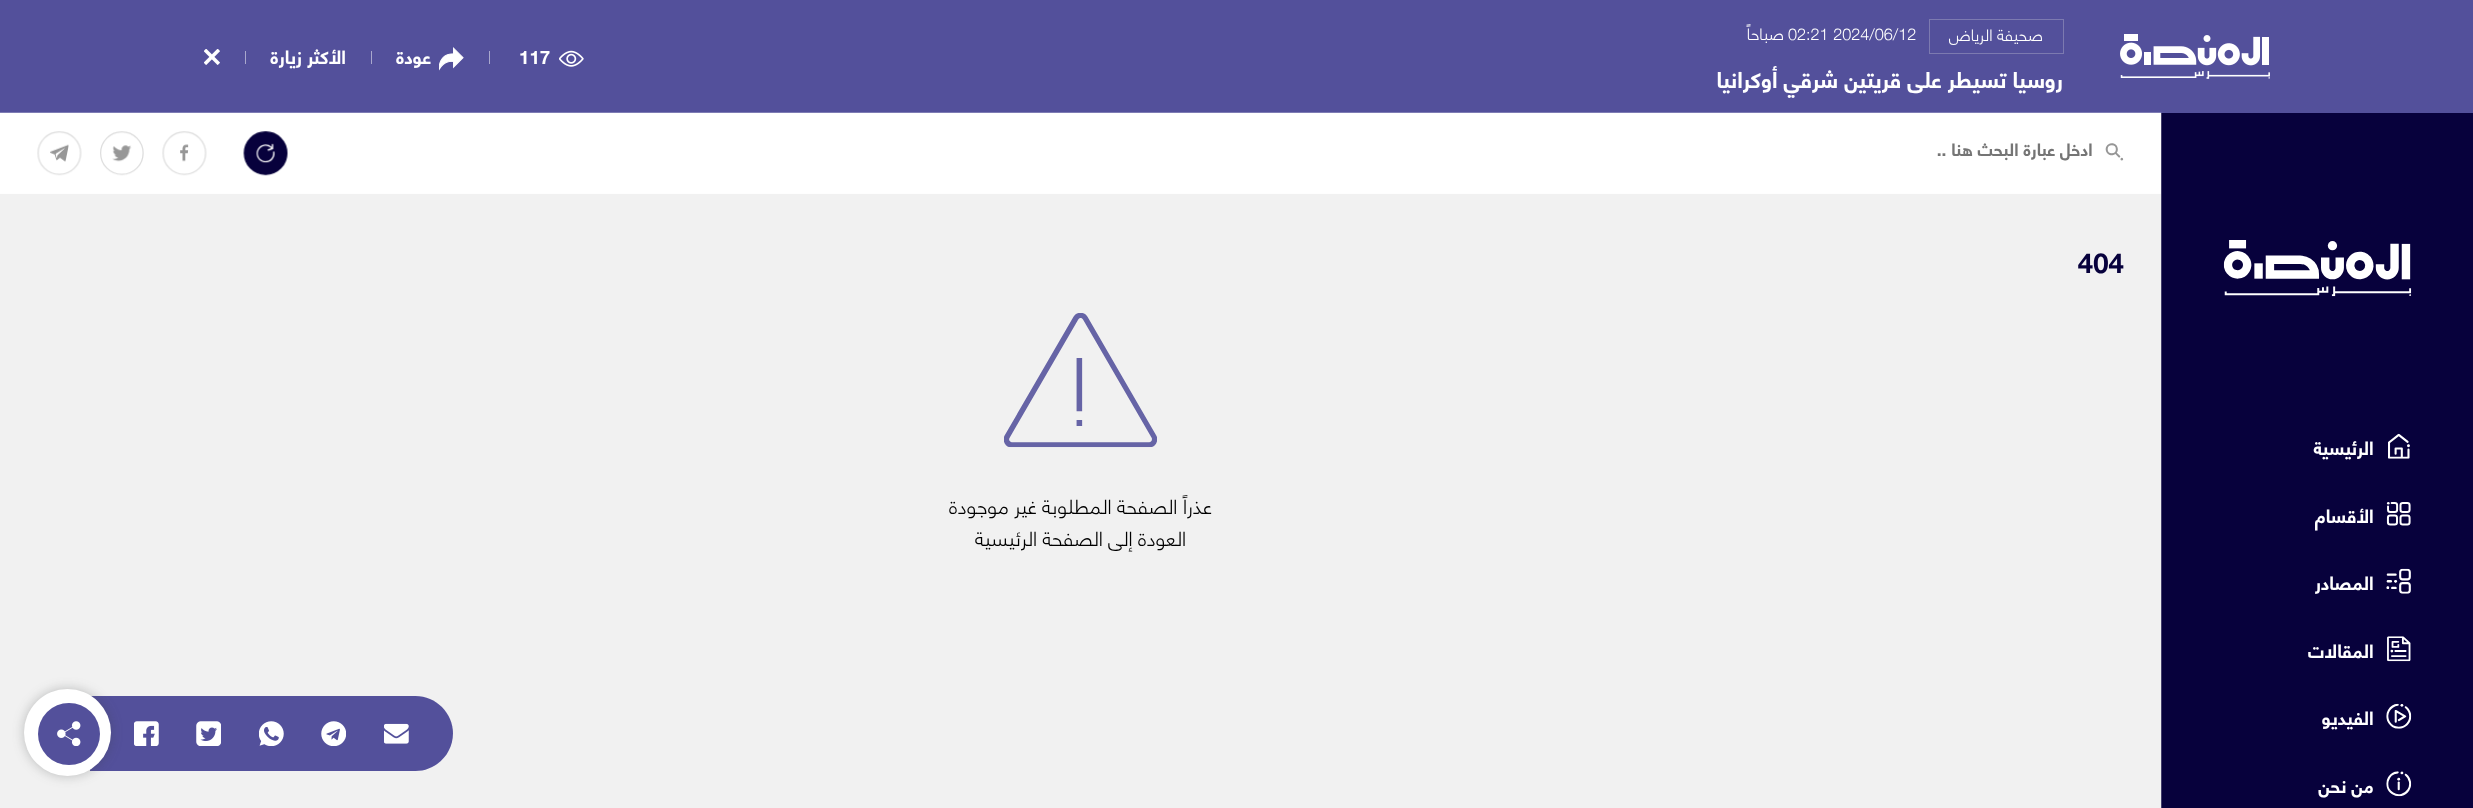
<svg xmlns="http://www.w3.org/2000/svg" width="2473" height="808">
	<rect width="100%" height="100%" fill="#FFFFFF" />
	<rect x="0" y="0" width="2473" height="113" fill="#53509B" />
	<image x="2120" y="34" width="150" height="45" href="assets/img1.png" />
	<rect x="1929.5" y="19.5" width="134" height="34" fill="none" stroke="#7C7AB0" />
	<text x="2043" y="41" font-family="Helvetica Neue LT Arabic" font-size="16.25" font-weight="300" direction="rtl" fill="#FFFFFF">صحيفة الرياض</text>
	<text x="1788" y="40" font-family="Helvetica Neue LT Arabic" font-size="16.25" font-weight="300" fill="#FFFFFF">02:21 2024/06/12</text>
	<text x="1784" y="40" font-family="Helvetica Neue LT Arabic" font-size="16.25" font-weight="300" direction="rtl" fill="#FFFFFF">صباحاً</text>
	<text x="2063" y="88" font-family="Helvetica Neue LT Arabic" font-size="22.5" font-weight="700" direction="rtl" fill="#FFFFFF">روسيا تسيطر على قريتين شرقي أوكرانيا</text>
	<image x="559" y="50" width="25" height="17" href="assets/img2.png" />
	<text x="519" y="64" font-family="Helvetica Neue LT Arabic" font-size="18.75" font-weight="700" fill="#FFFFFF">117</text>
	<rect x="489" y="51" width="1" height="13" fill="#A9A8CD" />
	<image x="439" y="47" width="25" height="24" href="assets/img3.png" />
	<text x="431" y="64" font-family="Helvetica Neue LT Arabic" font-size="18.75" font-weight="700" direction="rtl" fill="#FFFFFF">عودة</text>
	<rect x="371" y="51" width="1" height="13" fill="#A9A8CD" />
	<text x="346" y="64" font-family="Helvetica Neue LT Arabic" font-size="18.75" font-weight="700" direction="rtl" fill="#FFFFFF">الأكثر زيارة</text>
	<rect x="245" y="51" width="1" height="13" fill="#A9A8CD" />
	<image x="204" y="49" width="16" height="16" href="assets/img4.png" />
	<image x="0" y="112" width="2473" height="696" href="assets/img5.png" />
	<path d="M90 696H415.5C436 696 453 713 453 733.5C453 754 436 771 415.5 771H90Z" fill="#53509B" />
	<rect x="24" y="689" width="87" height="87" rx="43.5" fill="#3C3F40" fill-opacity="0.3" filter="blur(6px)" />
	<circle cx="67.5" cy="732.5" r="43.5" fill="#FFFFFF" />
	<image x="384" y="723" width="25" height="21" href="assets/img6.png" />
	<image x="321" y="721" width="25" height="25" href="assets/img7.png" />
	<image x="259" y="721" width="25" height="25" href="assets/img8.png" />
	<image x="196" y="721" width="25" height="25" href="assets/img9.png" />
	<image x="134" y="721" width="25" height="25" href="assets/img10.png" />
	<circle cx="69" cy="734" r="31" fill="#53509B" />
	<image x="57" y="721" width="24" height="25" href="assets/img11.png" />
</svg>
